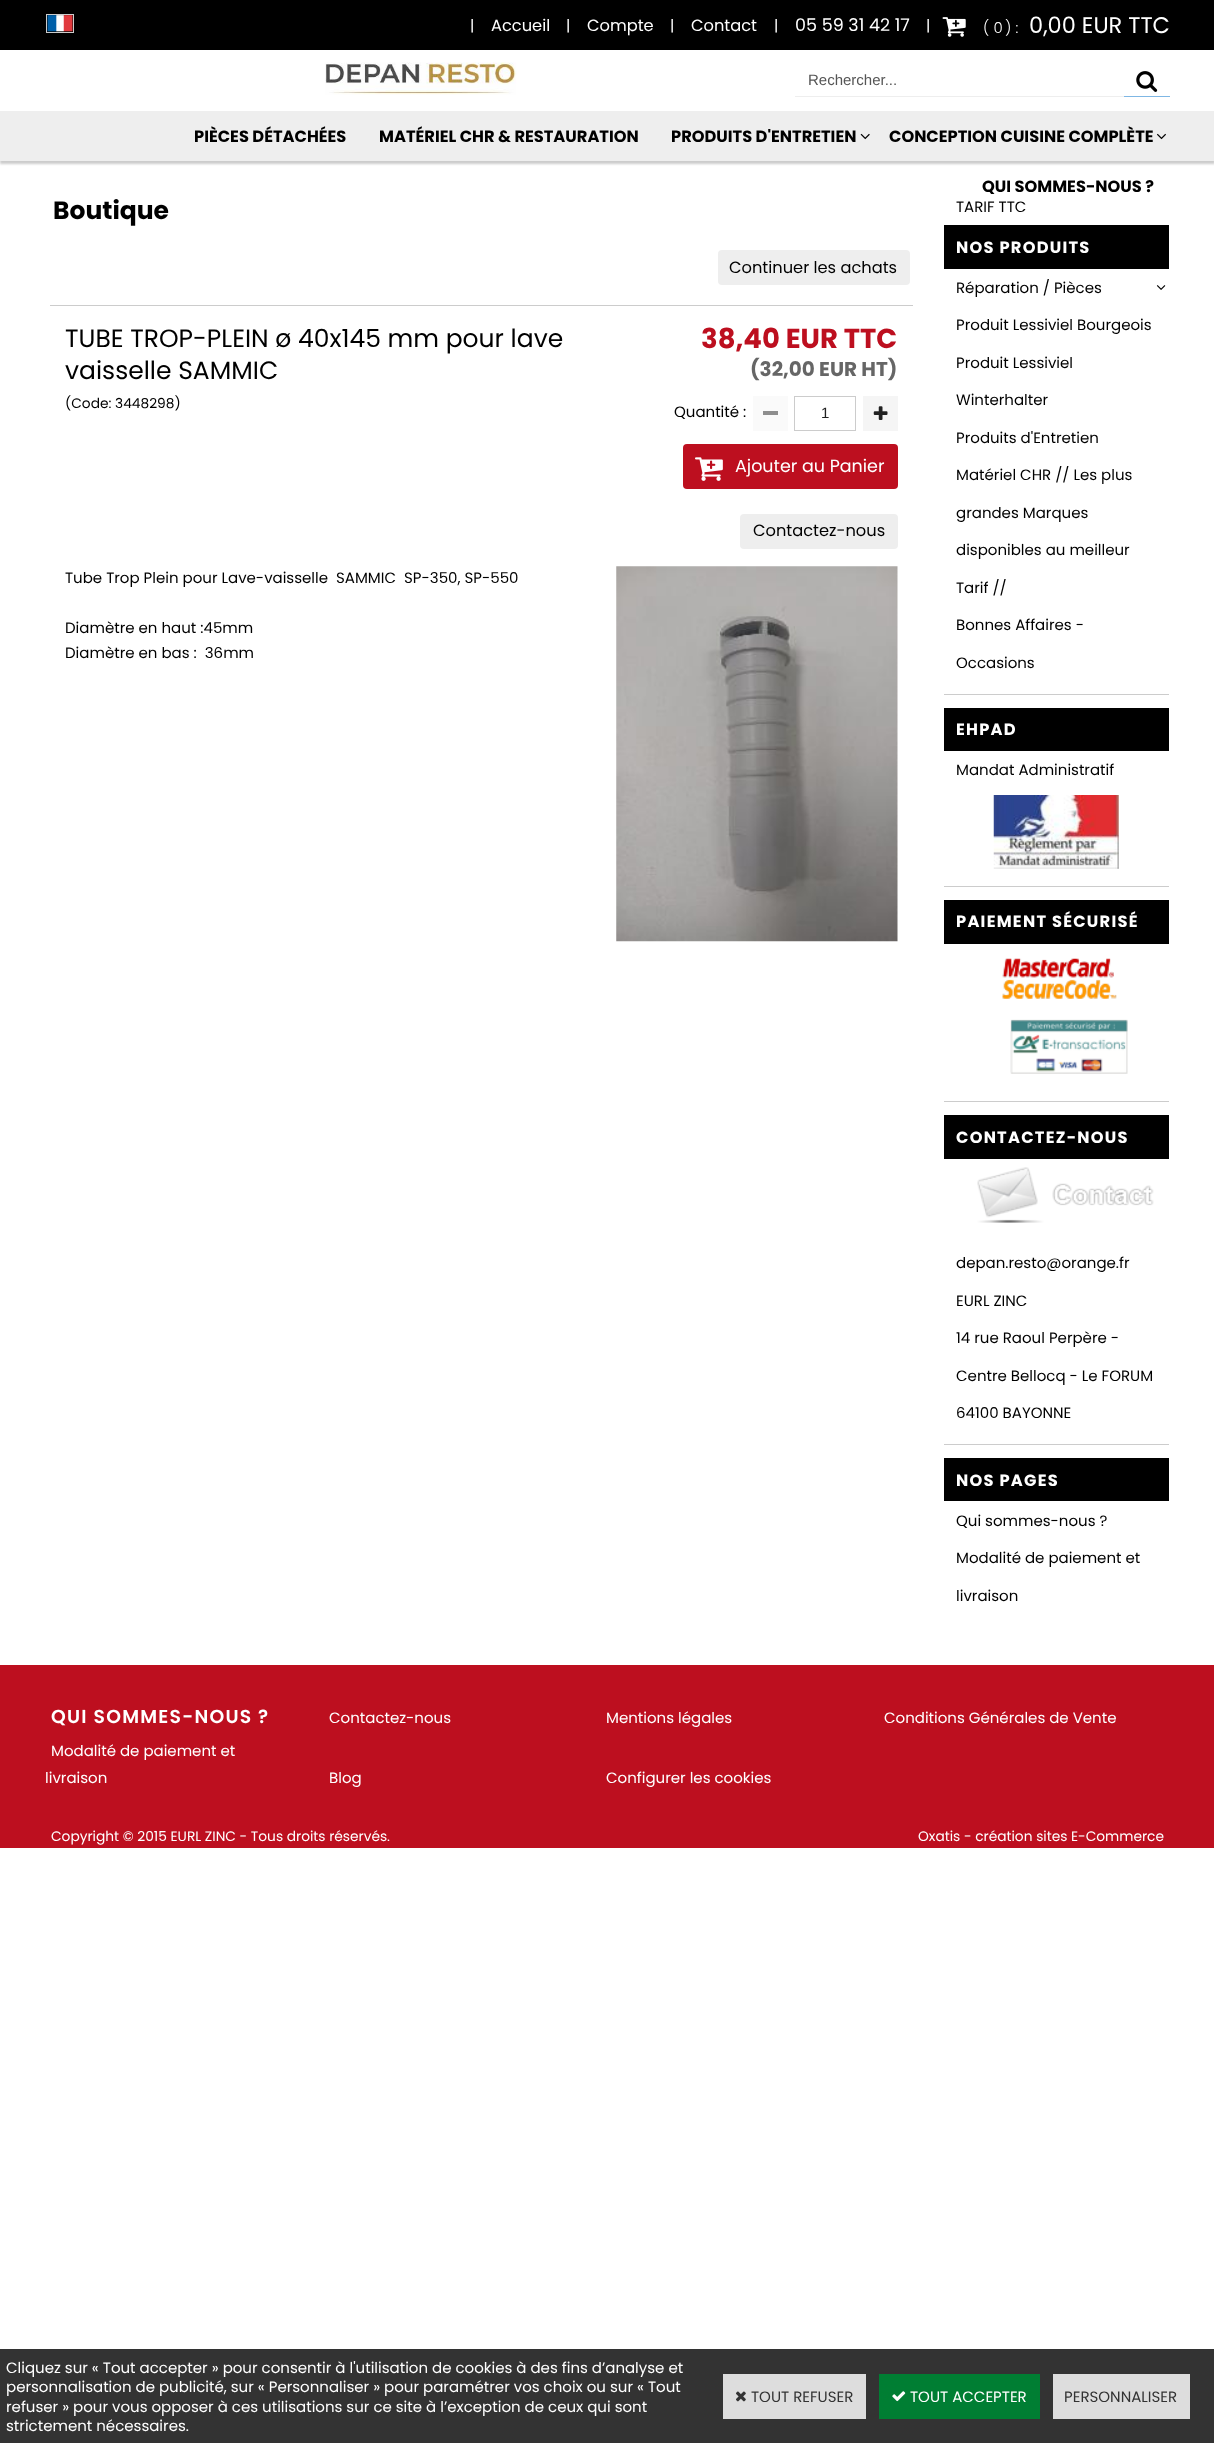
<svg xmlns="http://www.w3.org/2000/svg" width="1214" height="2443">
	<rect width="100%" height="100%" fill="#FFFFFF" />
	<rect x="0" y="0" width="1214" height="50" fill="#000000" />
	<image x="47" y="15" width="26" height="17" href="assets/img1.png" />
	<rect x="46.5" y="14.5" width="27" height="18" fill="none" stroke="#CCCCCC" />
	<text x="470" y="31" font-family="Poppins" font-size="15" fill="#FFFFFF">|</text>
	<text x="491" y="31" font-family="Poppins" font-size="16.25" fill="#FFFFFF">Accueil</text>
	<text x="566" y="31" font-family="Poppins" font-size="15" fill="#FFFFFF">|</text>
	<text x="587" y="31" font-family="Poppins" font-size="16.25" fill="#FFFFFF">Compte</text>
	<text x="670" y="31" font-family="Poppins" font-size="15" fill="#FFFFFF">|</text>
	<text x="691" y="31" font-family="Poppins" font-size="16.25" fill="#FFFFFF">Contact</text>
	<text x="774" y="31" font-family="Poppins" font-size="15" fill="#FFFFFF">|</text>
	<text x="795" y="31" font-family="Poppins" font-size="17.5" fill="#FFFFFF">05 59 31 42 17</text>
	<text x="926" y="31" font-family="Poppins" font-size="15" fill="#FFFFFF">|</text>
	<image x="942" y="17" width="24" height="20" href="assets/img2.png" />
	<g font-family="Poppins" font-size="15" font-weight="300" fill="#FFFFFF">
		<text x="983" y="33">( 0</text>
		<text x="1005" y="33">) :</text>
	</g>
	<text x="1029" y="33" font-family="Poppins" font-size="22.5" fill="#FFFFFF">0,00 EUR TTC</text>
	<image x="325" y="62" width="192" height="33" href="assets/img3.png" />
	<rect x="795" y="96" width="329" height="1" fill="#EEEEEE" />
	<text x="808" y="85" font-family="Liberation Sans" font-size="15" fill="#555555">Rechercher...</text>
	<rect x="1124" y="96" width="46" height="1" fill="#7FB7E4" />
	<image x="1136" y="71" width="22" height="21" href="assets/img4.png" />
	<rect x="0" y="114" width="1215" height="50" fill="#000000" fill-opacity="0.2" filter="blur(1px)" />
	<rect x="0" y="111" width="1214" height="50" fill="#EEEEEE" />
	<g font-family="Poppins" font-size="16.25" font-weight="700" fill="#000000">
		<text x="194" y="142">PIÈCES DÉTACHÉES</text>
		<text x="379" y="142">MATÉRIEL CHR &amp; RESTAURATION</text>
		<text x="671" y="142">PRODUITS D'ENTRETIEN</text>
	</g>
	<image x="860" y="133" width="10" height="7" href="assets/img5.png" />
	<text x="889" y="142" font-family="Poppins" font-size="16.25" font-weight="700" fill="#000000">CONCEPTION CUISINE COMPLÈTE</text>
	<image x="1157" y="133" width="9" height="7" href="assets/img6.png" />
	<text x="982" y="192" font-family="Poppins" font-size="16.25" font-weight="700" fill="#000000">QUI SOMMES-NOUS ?</text>
	<text x="53" y="219" font-family="Poppins" font-size="25" font-weight="700" fill="#000000">Boutique</text>
	<rect x="718" y="250" width="192" height="35" rx="4" fill="#EEEEEE" />
	<text x="729" y="273" font-family="Poppins" font-size="16.25" fill="#000000">Continuer les achats</text>
	<rect x="50" y="305" width="863" height="1" fill="#CCCCCC" />
	<g font-family="Poppins" font-size="25" fill="#000000">
		<text x="65" y="347">TUBE TROP-PLEIN ø 40x145 mm pour lave</text>
		<text x="65" y="379">vaisselle SAMMIC</text>
	</g>
	<text x="65" y="408" font-family="Poppins" font-size="13.75" fill="#000000">(Code: 3448298)</text>
	<text x="701" y="348" font-family="Poppins" font-size="27.5" font-weight="700" fill="#BD0F1F">38,40 EUR TTC</text>
	<text x="750" y="376" font-family="Poppins" font-size="20" font-weight="700" fill="#666666">(32,00 EUR HT)</text>
	<text x="674" y="417" font-family="Poppins" font-size="15" fill="#000000">Quantité :</text>
	<rect x="753" y="396" width="35" height="35" fill="#FAFAFA" />
	<rect x="763" y="411" width="15" height="4" fill="#8E8E8E" />
	<rect x="794.5" y="396.5" width="61" height="34" fill="none" stroke="#CCCCCC" />
	<text x="821" y="418" font-family="Liberation Sans" font-size="15" fill="#212121">1</text>
	<rect x="863" y="396" width="35" height="35" fill="#F5F5F5" />
	<image x="873" y="406" width="15" height="14" href="assets/img7.png" />
	<rect x="683" y="444" width="215" height="45" rx="4" fill="#BD0F1F" />
	<image x="695" y="457" width="28" height="24" href="assets/img8.png" />
	<text x="735" y="472" font-family="Poppins" font-size="17.5" fill="#FFFFFF">Ajouter au Panier</text>
	<rect x="740" y="514" width="158" height="35" rx="4" fill="#EEEEEE" />
	<text x="753" y="536" font-family="Poppins" font-size="16.25" fill="#000000">Contactez-nous</text>
	<g font-family="Poppins" font-size="15" fill="#000000">
		<text x="65" y="583" xml:space="preserve">Tube Trop Plein pour Lave-vaisselle  SAMMIC  SP-350, SP-550</text>
		<text x="65" y="633">Diamètre en haut :45mm</text>
		<text x="65" y="658" xml:space="preserve">Diamètre en bas :  36mm</text>
	</g>
	<image x="616" y="566" width="282" height="376" href="assets/img9.png" />
	<text x="956" y="212" font-family="Poppins" font-size="15" fill="#000000">TARIF TTC</text>
	<rect x="944" y="225" width="225" height="44" fill="#000000" />
	<text x="956" y="253" font-family="Poppins" font-size="16.25" font-weight="700" letter-spacing="1.25" fill="#FFFFFF">NOS PRODUITS</text>
	<text x="956" y="293" font-family="Poppins" font-size="15" fill="#000000">Réparation / Pièces</text>
	<image x="1156" y="285" width="10" height="5" href="assets/img10.png" />
	<g font-family="Poppins" font-size="15" fill="#000000">
		<text x="956" y="330">Produit Lessiviel Bourgeois</text>
		<text x="956" y="368">Produit Lessiviel</text>
		<text x="956" y="405">Winterhalter</text>
		<text x="956" y="443">Produits d'Entretien</text>
		<text x="956" y="480">Matériel CHR // Les plus</text>
		<text x="956" y="518">grandes Marques</text>
		<text x="956" y="555">disponibles au meilleur</text>
		<text x="956" y="593">Tarif //</text>
		<text x="956" y="630">Bonnes Affaires -</text>
		<text x="956" y="668">Occasions</text>
	</g>
	<rect x="944" y="694" width="225" height="1" fill="#CCCCCC" />
	<rect x="944" y="708" width="225" height="43" fill="#000000" />
	<text x="956" y="735" font-family="Poppins" font-size="16.25" font-weight="700" letter-spacing="1.25" fill="#FFFFFF">EHPAD</text>
	<text x="956" y="775" font-family="Poppins" font-size="15" fill="#000000">Mandat Administratif</text>
	<image x="993" y="795" width="126" height="74" href="assets/img11.png" />
	<rect x="944" y="886" width="225" height="1" fill="#CCCCCC" />
	<rect x="944" y="900" width="225" height="44" fill="#000000" />
	<text x="956" y="927" font-family="Poppins" font-size="16.25" font-weight="700" letter-spacing="1.25" fill="#FFFFFF">PAIEMENT SÉCURISÉ</text>
	<image x="1002" y="958" width="115" height="41" href="assets/img12.png" />
	<image x="1010" y="1019" width="118" height="55" href="assets/img13.png" />
	<rect x="944" y="1101" width="225" height="1" fill="#CCCCCC" />
	<rect x="944" y="1115" width="225" height="44" fill="#000000" />
	<text x="956" y="1143" font-family="Poppins" font-size="16.25" font-weight="700" letter-spacing="1.25" fill="#FFFFFF">CONTACTEZ-NOUS</text>
	<image x="977" y="1167" width="177" height="56" href="assets/img14.png" />
	<g font-family="Poppins" font-size="15" fill="#000000">
		<text x="956" y="1268">depan.resto@orange.fr</text>
		<text x="956" y="1306">EURL ZINC</text>
		<text x="956" y="1343">14 rue Raoul Perpère -</text>
		<text x="956" y="1381">Centre Bellocq - Le FORUM</text>
		<text x="956" y="1418">64100 BAYONNE</text>
	</g>
	<rect x="944" y="1444" width="225" height="1" fill="#CCCCCC" />
	<rect x="944" y="1458" width="225" height="43" fill="#000000" />
	<text x="956" y="1486" font-family="Poppins" font-size="16.25" font-weight="700" letter-spacing="1.25" fill="#FFFFFF">NOS PAGES</text>
	<g font-family="Poppins" font-size="15" fill="#000000">
		<text x="956" y="1526">Qui sommes-nous ?</text>
		<text x="956" y="1563">Modalité de paiement et</text>
		<text x="956" y="1601">livraison</text>
	</g>
	<rect x="0" y="1665" width="1214" height="183" fill="#BD0F1F" />
	<text x="51" y="1723" font-family="Poppins" font-size="18.75" font-weight="600" letter-spacing="1.25" fill="#FFFFFF">QUI SOMMES-NOUS ?</text>
	<g font-family="Poppins" font-size="15" fill="#FFFFFF">
		<text x="329" y="1723">Contactez-nous</text>
		<text x="606" y="1723">Mentions légales</text>
		<text x="884" y="1723">Conditions Générales de Vente</text>
		<text x="51" y="1756">Modalité de paiement et</text>
		<text x="45" y="1783">livraison</text>
		<text x="329" y="1783">Blog</text>
		<text x="606" y="1783">Configurer les cookies</text>
	</g>
	<g font-family="Poppins" font-size="13.75" fill="#FFFFFF">
		<text x="51" y="1841">Copyright © 2015 EURL ZINC - Tous droits réservés.</text>
		<text x="918" y="1841">Oxatis - création sites E-Commerce</text>
	</g>
	<rect x="0" y="2349" width="1214" height="94" fill="#333333" />
	<g font-family="Poppins" font-size="15" fill="#FFFFFF">
		<text x="6" y="2373">Cliquez sur « Tout accepter » pour consentir à l'utilisation de cookies à des fins d’analyse et</text>
		<text x="6" y="2392">personnalisation de publicité, sur « Personnaliser » pour paramétrer vos choix ou sur « Tout</text>
		<text x="6" y="2412">refuser » pour vous opposer à ces utilisations sur ce site à l’exception de ceux qui sont</text>
		<text x="6" y="2431">strictement nécessaires.</text>
	</g>
	<rect x="723" y="2374" width="143" height="45" fill="#DDDDDD" />
	<image x="736" y="2391" width="10" height="11" href="assets/img15.png" />
	<text x="751" y="2402" font-family="Poppins" font-size="15" fill="#333333">TOUT REFUSER</text>
	<rect x="879" y="2374" width="161" height="45" fill="#007E33" />
	<image x="892" y="2391" width="14" height="11" href="assets/img16.png" />
	<text x="910" y="2402" font-family="Poppins" font-size="15" fill="#FFFFFF">TOUT ACCEPTER</text>
	<rect x="1053" y="2374" width="137" height="45" fill="#DDDDDD" />
	<text x="1064" y="2402" font-family="Poppins" font-size="15" fill="#333333">PERSONNALISER</text>
</svg>
